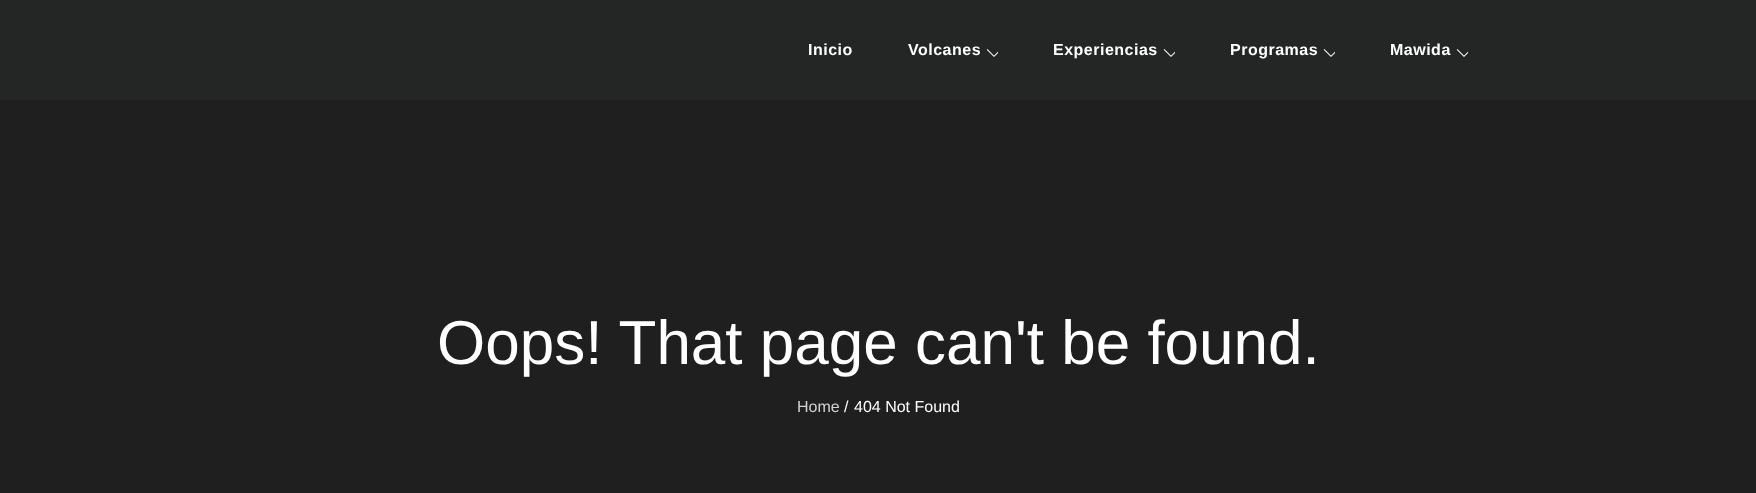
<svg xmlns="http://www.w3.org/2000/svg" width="1756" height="493">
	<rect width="100%" height="100%" fill="#1F1F1F" />
	<rect x="0" y="0" width="1756" height="100" fill="#242625" />
	<g font-family="Liberation Sans" font-size="16" font-weight="700" letter-spacing="0.5" fill="#FFFFFF">
		<text x="808" y="55">Inicio</text>
		<text x="908" y="55">Volcanes</text>
	</g>
	<image x="986" y="49" width="12" height="8" href="assets/img1.png" />
	<text x="1053" y="55" font-family="Liberation Sans" font-size="16" font-weight="700" letter-spacing="0.5" fill="#FFFFFF">Experiencias</text>
	<image x="1163" y="49" width="12" height="8" href="assets/img1.png" />
	<text x="1230" y="55" font-family="Liberation Sans" font-size="16" font-weight="700" letter-spacing="0.5" fill="#FFFFFF">Programas</text>
	<image x="1323" y="49" width="12" height="8" href="assets/img1.png" />
	<text x="1390" y="55" font-family="Liberation Sans" font-size="16" font-weight="700" letter-spacing="0.5" fill="#FFFFFF">Mawida</text>
	<image x="1456" y="49" width="12" height="8" href="assets/img1.png" />
	<text x="437" y="364" font-family="Liberation Sans" font-size="62" fill="#FFFFFF">Oops! That page can't be found.</text>
	<text x="797" y="412" font-family="Liberation Sans" font-size="16" fill="#D2D2D2">Home</text>
	<g font-family="Liberation Sans" font-size="16" fill="#FFFFFF">
		<text x="844" y="412">/</text>
		<text x="854" y="412">404 Not Found</text>
	</g>
</svg>
